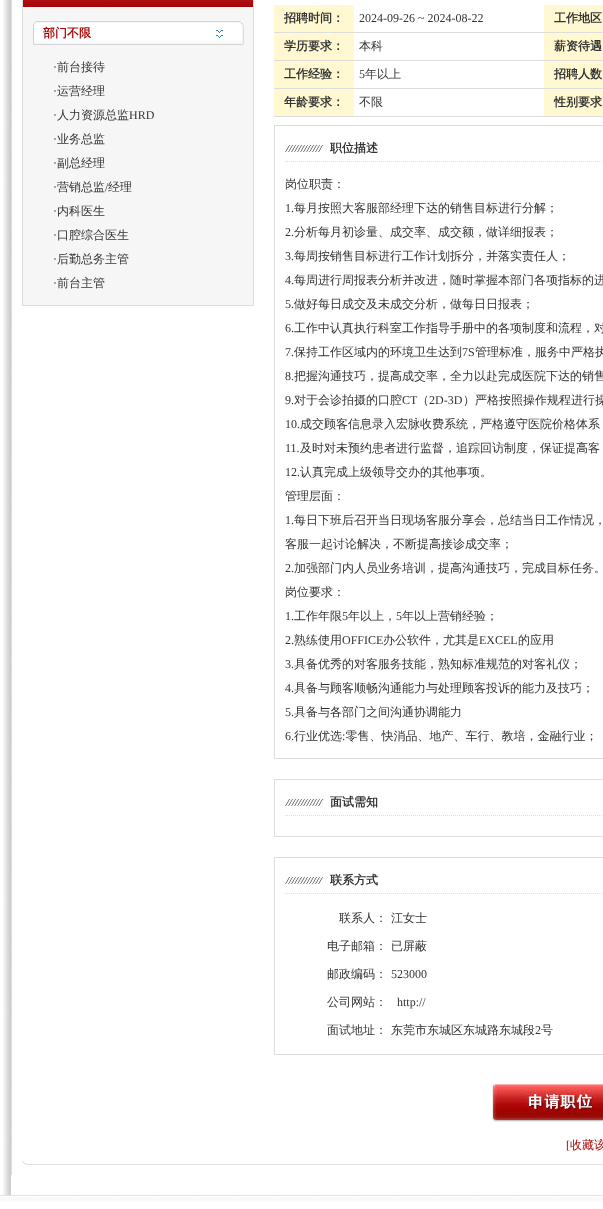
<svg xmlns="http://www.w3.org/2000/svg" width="603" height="1209">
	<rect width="100%" height="100%" fill="#FFFFFF" />
	<image x="3" y="0" width="8" height="1195" href="assets/img1.png" />
	<rect x="11" y="0" width="1" height="1175" fill="#DDDDDD" />
	<rect x="23" y="7" width="230" height="298" fill="#F6F6F6" />
	<image x="23" y="0" width="230" height="7" href="assets/img2.png" />
	<rect x="22.5" y="-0.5" width="231" height="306" fill="none" stroke="#DDDDDD" />
	<image x="33" y="21" width="211" height="24" href="assets/img3.png" />
	<text x="43" y="37" font-family="WenQuanYi Zen Hei" font-size="12" font-weight="700" fill="#AC0606">部门不限</text>
	<text x="53" y="71" font-family="Liberation Serif" font-size="12" fill="#333333">·</text>
	<text x="57" y="71" font-family="WenQuanYi Zen Hei" font-size="12" font-weight="500" fill="#333333">前台接待</text>
	<text x="53" y="95" font-family="Liberation Serif" font-size="12" fill="#333333">·</text>
	<text x="57" y="95" font-family="WenQuanYi Zen Hei" font-size="12" font-weight="500" fill="#333333">运营经理</text>
	<text x="53" y="119" font-family="Liberation Serif" font-size="12" fill="#333333">·</text>
	<text x="57" y="119" font-family="WenQuanYi Zen Hei" font-size="12" font-weight="500" fill="#333333">人力资源总监</text>
	<g font-family="Liberation Serif" font-size="12" fill="#333333">
		<text x="129" y="119">HRD</text>
		<text x="53" y="143">·</text>
	</g>
	<text x="57" y="143" font-family="WenQuanYi Zen Hei" font-size="12" font-weight="500" fill="#333333">业务总监</text>
	<text x="53" y="167" font-family="Liberation Serif" font-size="12" fill="#333333">·</text>
	<text x="57" y="167" font-family="WenQuanYi Zen Hei" font-size="12" font-weight="500" fill="#333333">副总经理</text>
	<text x="53" y="191" font-family="Liberation Serif" font-size="12" fill="#333333">·</text>
	<text x="57" y="191" font-family="WenQuanYi Zen Hei" font-size="12" font-weight="500" fill="#333333">营销总监</text>
	<text x="105" y="191" font-family="Liberation Serif" font-size="12" fill="#333333">/</text>
	<text x="108" y="191" font-family="WenQuanYi Zen Hei" font-size="12" font-weight="500" fill="#333333">经理</text>
	<text x="53" y="215" font-family="Liberation Serif" font-size="12" fill="#333333">·</text>
	<text x="57" y="215" font-family="WenQuanYi Zen Hei" font-size="12" font-weight="500" fill="#333333">内科医生</text>
	<text x="53" y="239" font-family="Liberation Serif" font-size="12" fill="#333333">·</text>
	<text x="57" y="239" font-family="WenQuanYi Zen Hei" font-size="12" font-weight="500" fill="#333333">口腔综合医生</text>
	<text x="53" y="263" font-family="Liberation Serif" font-size="12" fill="#333333">·</text>
	<text x="57" y="263" font-family="WenQuanYi Zen Hei" font-size="12" font-weight="500" fill="#333333">后勤总务主管</text>
	<text x="53" y="287" font-family="Liberation Serif" font-size="12" fill="#333333">·</text>
	<text x="57" y="287" font-family="WenQuanYi Zen Hei" font-size="12" font-weight="500" fill="#333333">前台主管</text>
	<rect x="274" y="5" width="80" height="27" fill="#FFF8D0" />
	<rect x="274" y="32" width="329" height="1" fill="#DDDDDD" />
	<text x="284" y="22" font-family="WenQuanYi Zen Hei" font-size="12" font-weight="700" fill="#333333">招聘时间：</text>
	<text x="359" y="22" font-family="Liberation Serif" font-size="12" fill="#333333">2024-09-26 ~ 2024-08-22</text>
	<rect x="544" y="5" width="59" height="27" fill="#FFF8D0" />
	<text x="554" y="22" font-family="WenQuanYi Zen Hei" font-size="12" font-weight="700" fill="#333333">工作地区</text>
	<rect x="274" y="33" width="80" height="27" fill="#FFF8D0" />
	<rect x="274" y="60" width="329" height="1" fill="#DDDDDD" />
	<text x="284" y="50" font-family="WenQuanYi Zen Hei" font-size="12" font-weight="700" fill="#333333">学历要求：</text>
	<text x="359" y="50" font-family="WenQuanYi Zen Hei" font-size="12" font-weight="500" fill="#333333">本科</text>
	<rect x="544" y="33" width="59" height="27" fill="#FFF8D0" />
	<text x="554" y="50" font-family="WenQuanYi Zen Hei" font-size="12" font-weight="700" fill="#333333">薪资待遇</text>
	<rect x="274" y="61" width="80" height="27" fill="#FFF8D0" />
	<rect x="274" y="88" width="329" height="1" fill="#DDDDDD" />
	<text x="284" y="78" font-family="WenQuanYi Zen Hei" font-size="12" font-weight="700" fill="#333333">工作经验：</text>
	<text x="359" y="78" font-family="Liberation Serif" font-size="12" fill="#333333">5</text>
	<text x="365" y="78" font-family="WenQuanYi Zen Hei" font-size="12" font-weight="500" fill="#333333">年以上</text>
	<rect x="544" y="61" width="59" height="27" fill="#FFF8D0" />
	<text x="554" y="78" font-family="WenQuanYi Zen Hei" font-size="12" font-weight="700" fill="#333333">招聘人数</text>
	<rect x="274" y="89" width="80" height="27" fill="#FFF8D0" />
	<rect x="274" y="116" width="329" height="1" fill="#DDDDDD" />
	<text x="284" y="106" font-family="WenQuanYi Zen Hei" font-size="12" font-weight="700" fill="#333333">年龄要求：</text>
	<text x="359" y="106" font-family="WenQuanYi Zen Hei" font-size="12" font-weight="500" fill="#333333">不限</text>
	<rect x="544" y="89" width="59" height="27" fill="#FFF8D0" />
	<text x="554" y="106" font-family="WenQuanYi Zen Hei" font-size="12" font-weight="700" fill="#333333">性别要求</text>
	<rect x="274.5" y="125.5" width="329" height="633" fill="none" stroke="#DDDDDD" />
	<image x="285" y="141" width="39" height="12" href="assets/img4.png" />
	<path d="M285 161.5H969" fill="none" stroke="#DDDDDD" stroke-dasharray="1 1" />
	<text x="330" y="152" font-family="WenQuanYi Zen Hei" font-size="12" font-weight="700" fill="#333333">职位描述</text>
	<text x="285" y="188" font-family="WenQuanYi Zen Hei" font-size="12" font-weight="500" fill="#333333">岗位职责：</text>
	<text x="285" y="212" font-family="Liberation Serif" font-size="12" fill="#333333">1.</text>
	<text x="294" y="212" font-family="WenQuanYi Zen Hei" font-size="12" font-weight="500" fill="#333333">每月按照大客服部经理下达的销售目标进行分解；</text>
	<text x="285" y="236" font-family="Liberation Serif" font-size="12" fill="#333333">2.</text>
	<text x="294" y="236" font-family="WenQuanYi Zen Hei" font-size="12" font-weight="500" fill="#333333">分析每月初诊量、成交率、成交额，做详细报表；</text>
	<text x="285" y="260" font-family="Liberation Serif" font-size="12" fill="#333333">3.</text>
	<text x="294" y="260" font-family="WenQuanYi Zen Hei" font-size="12" font-weight="500" fill="#333333">每周按销售目标进行工作计划拆分，并落实责任人；</text>
	<text x="285" y="284" font-family="Liberation Serif" font-size="12" fill="#333333">4.</text>
	<text x="294" y="284" font-family="WenQuanYi Zen Hei" font-size="12" font-weight="500" fill="#333333">每周进行周报表分析并改进，随时掌握本部门各项指标的进</text>
	<text x="285" y="308" font-family="Liberation Serif" font-size="12" fill="#333333">5.</text>
	<text x="294" y="308" font-family="WenQuanYi Zen Hei" font-size="12" font-weight="500" fill="#333333">做好每日成交及未成交分析，做每日日报表；</text>
	<text x="285" y="332" font-family="Liberation Serif" font-size="12" fill="#333333">6.</text>
	<text x="294" y="332" font-family="WenQuanYi Zen Hei" font-size="12" font-weight="500" fill="#333333">工作中认真执行科室工作指导手册中的各项制度和流程，对</text>
	<text x="285" y="356" font-family="Liberation Serif" font-size="12" fill="#333333">7.</text>
	<text x="294" y="356" font-family="WenQuanYi Zen Hei" font-size="12" font-weight="500" fill="#333333">保持工作区域内的环境卫生达到</text>
	<text x="462" y="356" font-family="Liberation Serif" font-size="12" fill="#333333">7S</text>
	<text x="475" y="356" font-family="WenQuanYi Zen Hei" font-size="12" font-weight="500" fill="#333333">管理标准，服务中严格执</text>
	<text x="285" y="380" font-family="Liberation Serif" font-size="12" fill="#333333">8.</text>
	<text x="294" y="380" font-family="WenQuanYi Zen Hei" font-size="12" font-weight="500" fill="#333333">把握沟通技巧，提高成交率，全力以赴完成医院下达的销售</text>
	<text x="285" y="404" font-family="Liberation Serif" font-size="12" fill="#333333">9.</text>
	<text x="294" y="404" font-family="WenQuanYi Zen Hei" font-size="12" font-weight="500" fill="#333333">对于会诊拍摄的口腔</text>
	<text x="402" y="404" font-family="Liberation Serif" font-size="12" fill="#333333">CT</text>
	<text x="417" y="404" font-family="WenQuanYi Zen Hei" font-size="12" font-weight="500" fill="#333333">（</text>
	<text x="429" y="404" font-family="Liberation Serif" font-size="12" fill="#333333">2D-3D</text>
	<text x="463" y="404" font-family="WenQuanYi Zen Hei" font-size="12" font-weight="500" fill="#333333">）严格按照操作规程进行操</text>
	<text x="285" y="428" font-family="Liberation Serif" font-size="12" fill="#333333">10.</text>
	<text x="300" y="428" font-family="WenQuanYi Zen Hei" font-size="12" font-weight="500" fill="#333333">成交顾客信息录入宏脉收费系统，严格遵守医院价格体系</text>
	<text x="285" y="452" font-family="Liberation Serif" font-size="12" fill="#333333">11.</text>
	<text x="300" y="452" font-family="WenQuanYi Zen Hei" font-size="12" font-weight="500" fill="#333333">及时对未预约患者进行监督，追踪回访制度，保证提高客</text>
	<text x="285" y="476" font-family="Liberation Serif" font-size="12" fill="#333333">12.</text>
	<g font-family="WenQuanYi Zen Hei" font-size="12" font-weight="500" fill="#333333">
		<text x="300" y="476">认真完成上级领导交办的其他事项。</text>
		<text x="285" y="500">管理层面：</text>
	</g>
	<text x="285" y="524" font-family="Liberation Serif" font-size="12" fill="#333333">1.</text>
	<g font-family="WenQuanYi Zen Hei" font-size="12" font-weight="500" fill="#333333">
		<text x="294" y="524">每日下班后召开当日现场客服分享会，总结当日工作情况，</text>
		<text x="285" y="548">客服一起讨论解决，不断提高接诊成交率；</text>
	</g>
	<text x="285" y="572" font-family="Liberation Serif" font-size="12" fill="#333333">2.</text>
	<g font-family="WenQuanYi Zen Hei" font-size="12" font-weight="500" fill="#333333">
		<text x="294" y="572">加强部门内人员业务培训，提高沟通技巧，完成目标任务。</text>
		<text x="285" y="596">岗位要求：</text>
	</g>
	<text x="285" y="620" font-family="Liberation Serif" font-size="12" fill="#333333">1.</text>
	<text x="294" y="620" font-family="WenQuanYi Zen Hei" font-size="12" font-weight="500" fill="#333333">工作年限</text>
	<text x="342" y="620" font-family="Liberation Serif" font-size="12" fill="#333333">5</text>
	<text x="348" y="620" font-family="WenQuanYi Zen Hei" font-size="12" font-weight="500" fill="#333333">年以上，</text>
	<text x="396" y="620" font-family="Liberation Serif" font-size="12" fill="#333333">5</text>
	<text x="402" y="620" font-family="WenQuanYi Zen Hei" font-size="12" font-weight="500" fill="#333333">年以上营销经验；</text>
	<text x="285" y="644" font-family="Liberation Serif" font-size="12" fill="#333333">2.</text>
	<text x="294" y="644" font-family="WenQuanYi Zen Hei" font-size="12" font-weight="500" fill="#333333">熟练使用</text>
	<text x="342" y="644" font-family="Liberation Serif" font-size="12" fill="#333333">OFFICE</text>
	<text x="383" y="644" font-family="WenQuanYi Zen Hei" font-size="12" font-weight="500" fill="#333333">办公软件，尤其是</text>
	<text x="479" y="644" font-family="Liberation Serif" font-size="12" fill="#333333">EXCEL</text>
	<text x="518" y="644" font-family="WenQuanYi Zen Hei" font-size="12" font-weight="500" fill="#333333">的应用</text>
	<text x="285" y="668" font-family="Liberation Serif" font-size="12" fill="#333333">3.</text>
	<text x="294" y="668" font-family="WenQuanYi Zen Hei" font-size="12" font-weight="500" fill="#333333">具备优秀的对客服务技能，熟知标准规范的对客礼仪；</text>
	<text x="285" y="692" font-family="Liberation Serif" font-size="12" fill="#333333">4.</text>
	<text x="294" y="692" font-family="WenQuanYi Zen Hei" font-size="12" font-weight="500" fill="#333333">具备与顾客顺畅沟通能力与处理顾客投诉的能力及技巧；</text>
	<text x="285" y="716" font-family="Liberation Serif" font-size="12" fill="#333333">5.</text>
	<text x="294" y="716" font-family="WenQuanYi Zen Hei" font-size="12" font-weight="500" fill="#333333">具备与各部门之间沟通协调能力</text>
	<text x="285" y="740" font-family="Liberation Serif" font-size="12" fill="#333333">6.</text>
	<text x="294" y="740" font-family="WenQuanYi Zen Hei" font-size="12" font-weight="500" fill="#333333">行业优选 零售、快消品、地产、车行、教培，金融行业；</text>
	<text x="342" y="740" font-family="Liberation Serif" font-size="12" fill="#333333">:</text>
	<rect x="274.5" y="779.5" width="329" height="57" fill="none" stroke="#DDDDDD" />
	<image x="285" y="795" width="39" height="12" href="assets/img4.png" />
	<path d="M285 815.5H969" fill="none" stroke="#DDDDDD" stroke-dasharray="1 1" />
	<text x="330" y="806" font-family="WenQuanYi Zen Hei" font-size="12" font-weight="700" fill="#333333">面试需知</text>
	<rect x="274.5" y="857.5" width="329" height="197" fill="none" stroke="#DDDDDD" />
	<image x="285" y="873" width="39" height="12" href="assets/img4.png" />
	<path d="M285 893.5H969" fill="none" stroke="#DDDDDD" stroke-dasharray="1 1" />
	<text x="330" y="884" font-family="WenQuanYi Zen Hei" font-size="12" font-weight="700" fill="#333333">联系方式</text>
	<g font-family="WenQuanYi Zen Hei" font-size="12" font-weight="500" fill="#333333">
		<text x="339" y="922">联系人：</text>
		<text x="391" y="922">江女士</text>
		<text x="327" y="950">电子邮箱：</text>
		<text x="391" y="950">已屏蔽</text>
		<text x="327" y="978">邮政编码：</text>
	</g>
	<text x="391" y="978" font-family="Liberation Serif" font-size="12" fill="#333333">523000</text>
	<text x="327" y="1006" font-family="WenQuanYi Zen Hei" font-size="12" font-weight="500" fill="#333333">公司网站：</text>
	<text x="397" y="1006" font-family="Liberation Serif" font-size="12" fill="#333333">http://</text>
	<g font-family="WenQuanYi Zen Hei" font-size="12" font-weight="500" fill="#333333">
		<text x="327" y="1034">面试地址：</text>
		<text x="391" y="1034">东莞市东城区东城路东城段</text>
	</g>
	<text x="535" y="1034" font-family="Liberation Serif" font-size="12" fill="#333333">2</text>
	<text x="541" y="1034" font-family="WenQuanYi Zen Hei" font-size="12" font-weight="500" fill="#333333">号</text>
	<image x="491" y="1082" width="112" height="40" href="assets/img5.png" />
	<text x="566" y="1149" font-family="Liberation Serif" font-size="12" fill="#AC0606">[</text>
	<text x="570" y="1149" font-family="WenQuanYi Zen Hei" font-size="12" font-weight="500" fill="#AC0606">收藏该</text>
	<image x="22" y="1161" width="581" height="4" href="assets/img6.png" />
	<image x="0" y="1195" width="603" height="7" href="assets/img7.png" />
</svg>
